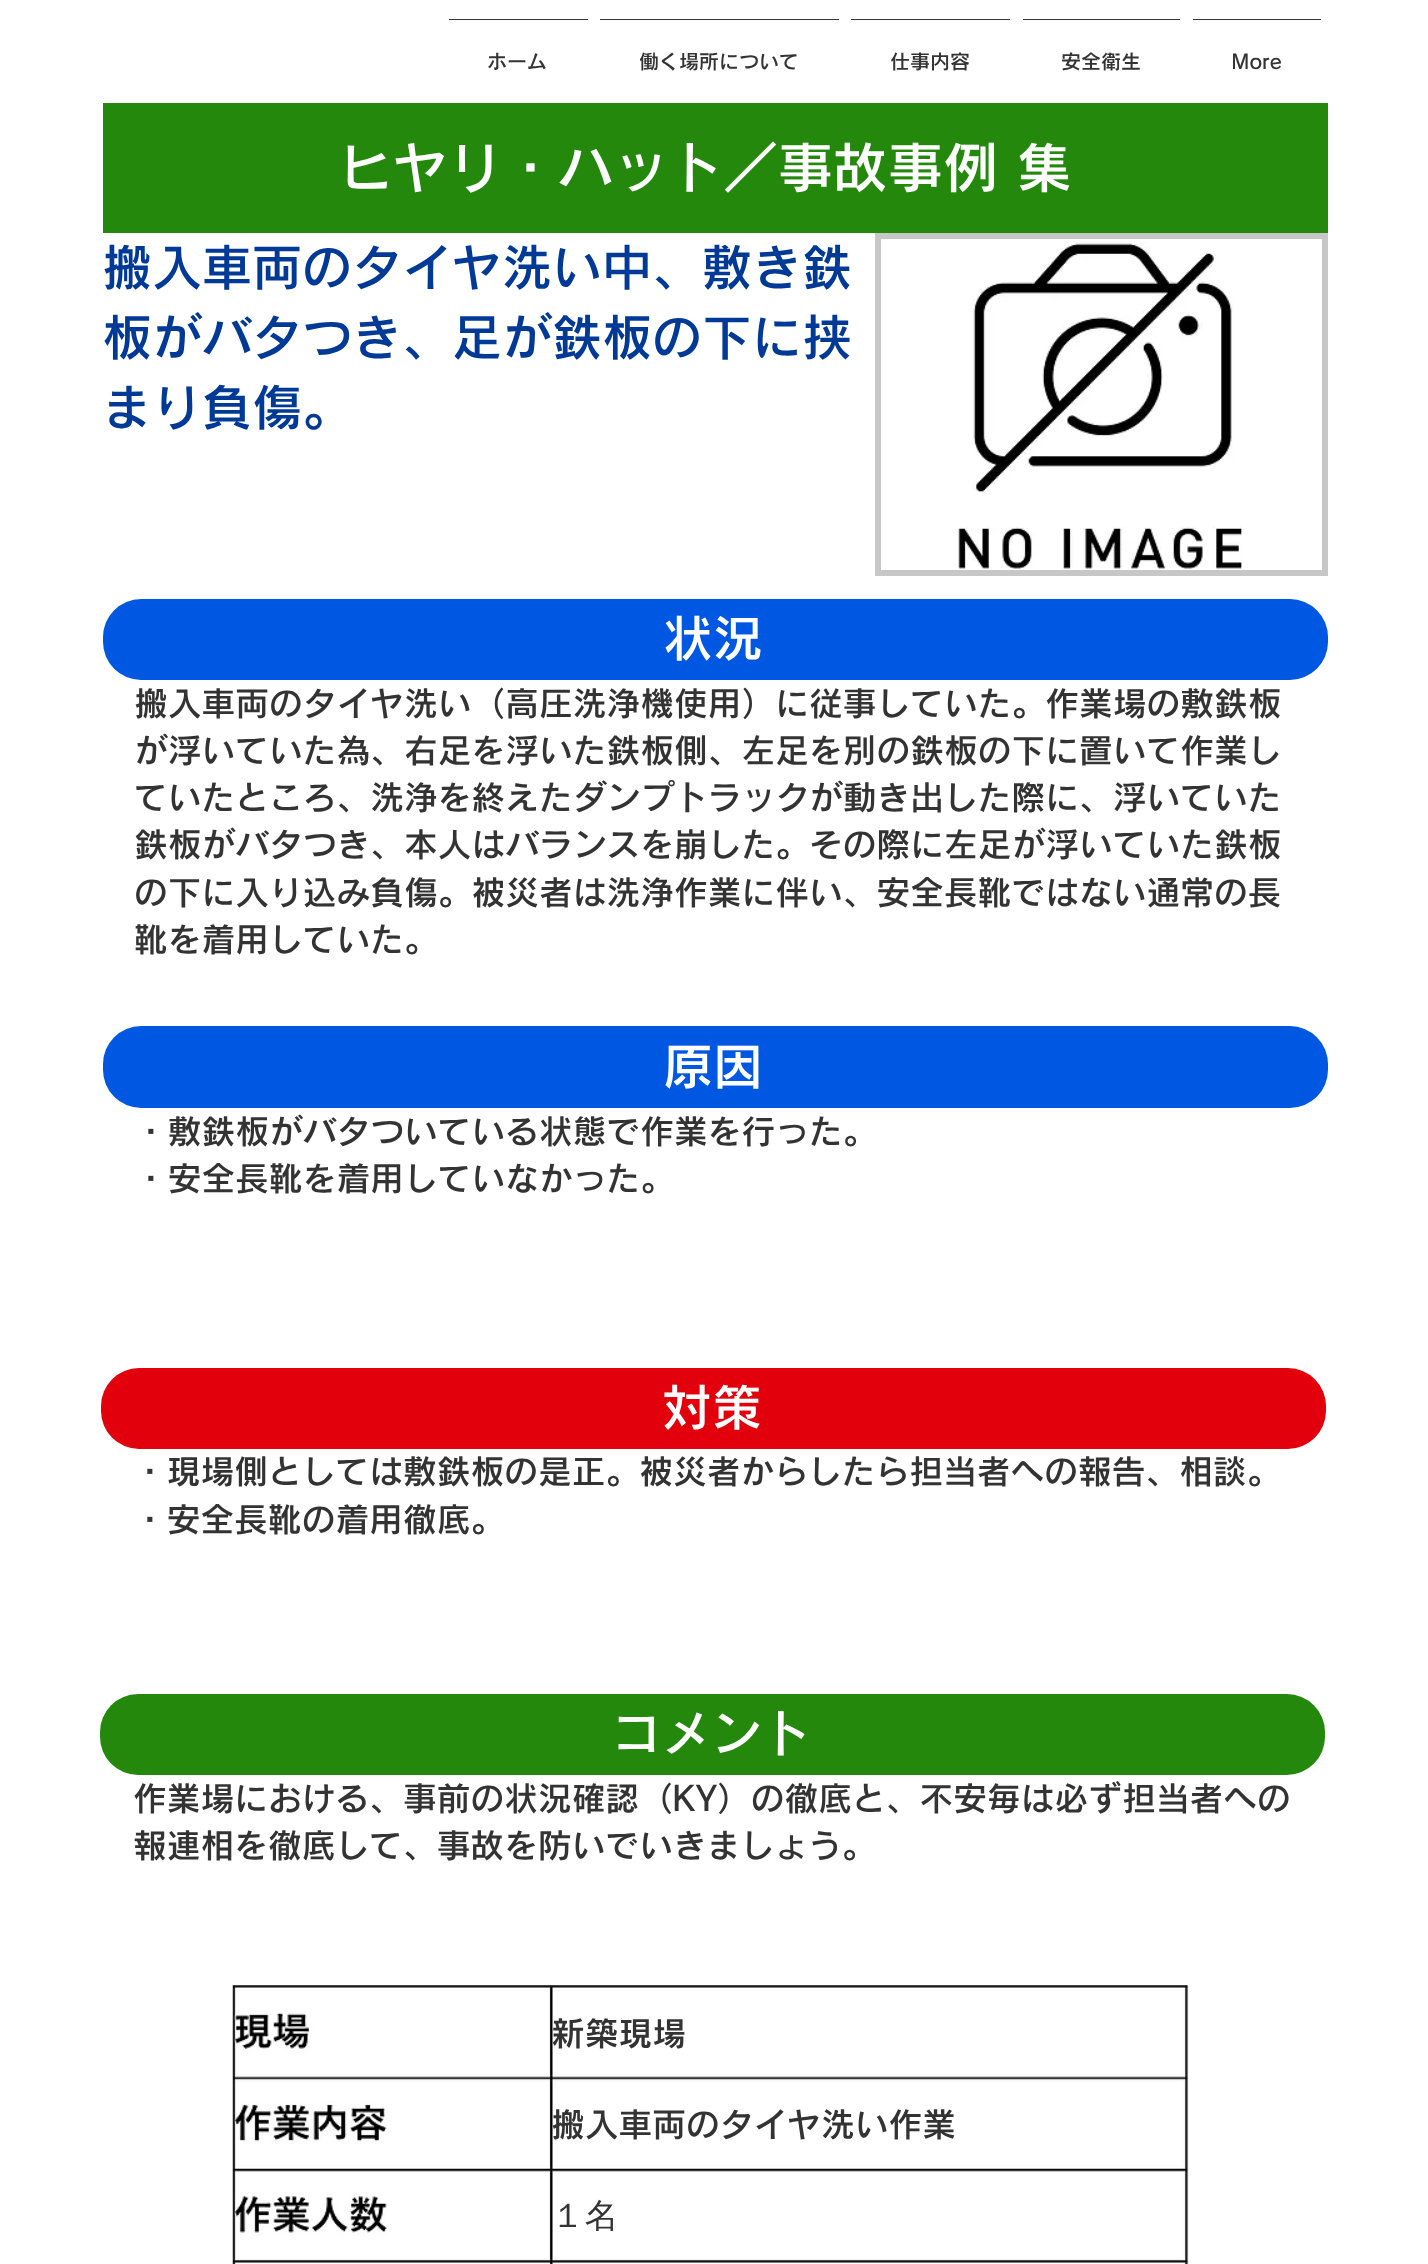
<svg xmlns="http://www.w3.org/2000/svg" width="1428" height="2264">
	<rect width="100%" height="100%" fill="#FFFFFF" />
	<rect x="449" y="19" width="139" height="1" fill="#333333" />
	<text x="487" y="69" font-family="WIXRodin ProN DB" font-size="20" font-weight="600" fill="#333333">ホーム</text>
	<rect x="600" y="19" width="239" height="1" fill="#333333" />
	<text x="639" y="69" font-family="WIXRodin ProN DB" font-size="20" font-weight="600" fill="#333333">働く場所について</text>
	<rect x="851" y="19" width="159" height="1" fill="#333333" />
	<text x="890" y="69" font-family="WIXRodin ProN DB" font-size="20" font-weight="600" fill="#333333">仕事内容</text>
	<rect x="1023" y="19" width="157" height="1" fill="#333333" />
	<text x="1061" y="69" font-family="WIXRodin ProN DB" font-size="20" font-weight="600" fill="#333333">安全衛生</text>
	<rect x="1193" y="19" width="128" height="1" fill="#333333" />
	<text x="1231" y="69" font-family="WIXRodin ProN DB" font-size="20" font-weight="600" fill="#333333">More</text>
	<rect x="103" y="103" width="1225" height="130" fill="#24880C" />
	<text x="338" y="188" font-family="WIXRodin ProN DB" font-size="55" font-weight="600" fill="#FFFFFF">ヒヤリ・ハット／事故事例 集</text>
	<g font-family="WIXRodin ProN DB" font-size="50" font-weight="600" fill="#003A96">
		<text x="102" y="286">搬入車両のタイヤ洗い中、敷き鉄</text>
		<text x="102" y="356">板がバタつき、足が鉄板の下に挟</text>
		<text x="102" y="426">まり負傷。</text>
	</g>
	<rect x="878" y="236" width="447" height="337" fill="none" stroke="#C7C7C7" stroke-width="6" />
	<image x="958" y="241" width="285" height="328" href="assets/img1.png" />
	<rect x="103" y="599" width="1225" height="81" rx="38" fill="#0057E1" />
	<text x="663" y="657" font-family="WIXRodin ProN DB" font-size="50" font-weight="600" fill="#FFFFFF">状況</text>
	<g font-family="WIXRodin ProN DB" font-size="33.75" font-weight="600" fill="#333333">
		<text x="134" y="716">搬入車両のタイヤ洗い（高圧洗浄機使用）に従事していた。作業場の敷鉄板</text>
		<text x="134" y="763">が浮いていた為、右足を浮いた鉄板側、左足を別の鉄板の下に置いて作業し</text>
		<text x="134" y="810">ていたところ、洗浄を終えたダンプトラックが動き出した際に、浮いていた</text>
		<text x="134" y="857">鉄板がバタつき、本人はバランスを崩した。その際に左足が浮いていた鉄板</text>
		<text x="134" y="905">の下に入り込み負傷。被災者は洗浄作業に伴い、安全長靴ではない通常の長</text>
		<text x="134" y="952">靴を着用していた。</text>
	</g>
	<rect x="103" y="1026" width="1225" height="82" rx="38" fill="#0057E1" />
	<text x="663" y="1085" font-family="WIXRodin ProN DB" font-size="50" font-weight="600" fill="#FFFFFF">原因</text>
	<g font-family="WIXRodin ProN DB" font-size="33.75" font-weight="600" fill="#333333">
		<text x="134" y="1144">・敷鉄板がバタついている状態で作業を行った。</text>
		<text x="134" y="1191">・安全長靴を着用していなかった。</text>
	</g>
	<rect x="101" y="1368" width="1225" height="81" rx="38" fill="#E1000C" />
	<text x="662" y="1426" font-family="WIXRodin ProN DB" font-size="50" font-weight="600" fill="#FFFFFF">対策</text>
	<g font-family="WIXRodin ProN DB" font-size="33.75" font-weight="600" fill="#333333">
		<text x="133" y="1484">・現場側としては敷鉄板の是正。被災者からしたら担当者への報告、相談。</text>
		<text x="133" y="1532">・安全長靴の着用徹底。</text>
	</g>
	<rect x="100" y="1694" width="1225" height="81" rx="38" fill="#24880C" />
	<text x="611" y="1752" font-family="WIXRodin ProN DB" font-size="50" font-weight="600" fill="#FFFFFF">コメント</text>
	<g font-family="WIXRodin ProN DB" font-size="33.75" font-weight="600" fill="#333333">
		<text x="133" y="1811">作業場における、事前の状況確認（KY）の徹底と、不安毎は必ず担当者への</text>
		<text x="133" y="1858">報連相を徹底して、事故を防いでいきましょう。</text>
	</g>
	<image x="232" y="1985" width="957" height="279" href="assets/img2.png" />
	<g font-family="WIXRodin ProN DB" font-size="33.75" font-weight="600" fill="#333333">
		<text x="551" y="2046">新築現場</text>
		<text x="551" y="2137">搬入車両のタイヤ洗い作業</text>
	</g>
	<text x="551" y="2227" font-family="WenQuanYi Zen Hei" font-size="33.75" font-weight="500" fill="#333333">１名</text>
</svg>
